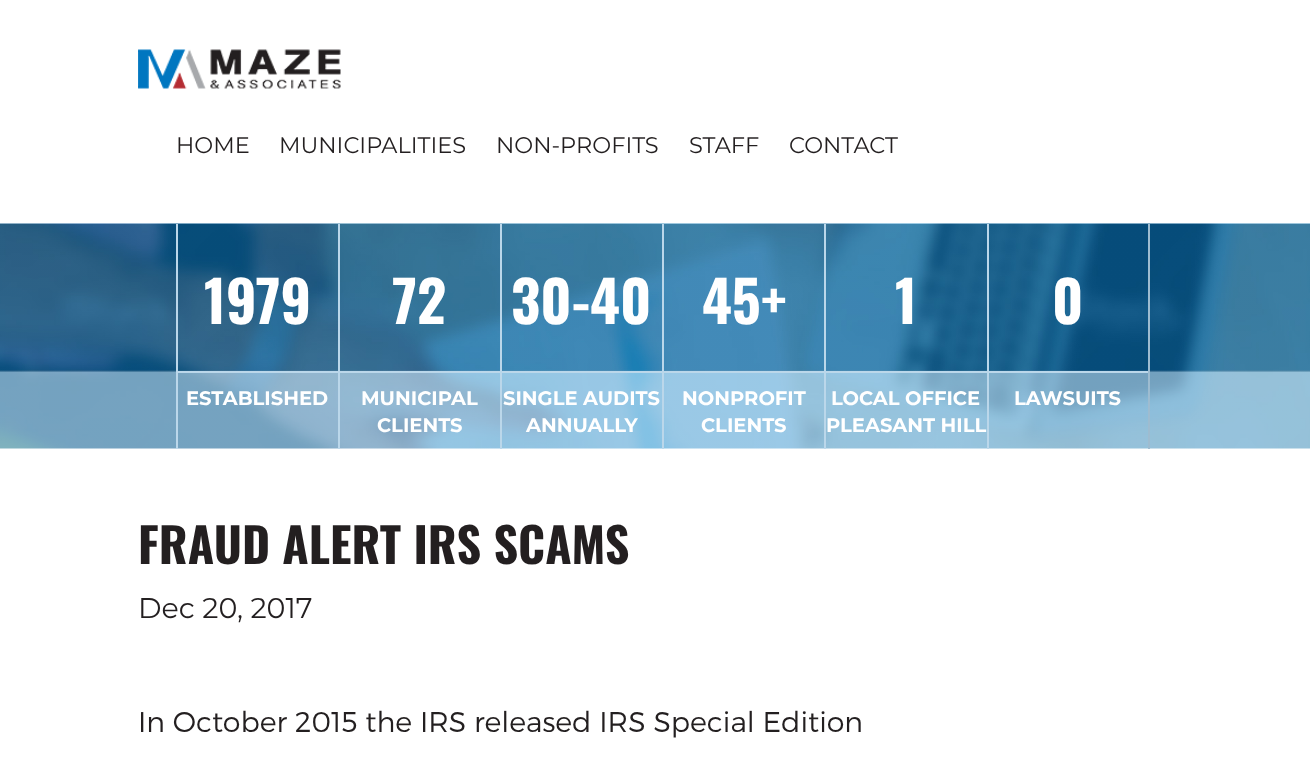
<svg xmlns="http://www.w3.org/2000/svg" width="1310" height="763">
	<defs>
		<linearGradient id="g1" gradientUnits="userSpaceOnUse" x1="656" y1="223" x2="656" y2="449"><stop offset="0" stop-color="#231F20" stop-opacity="0.15" /><stop offset="0.65" stop-color="#231F20" stop-opacity="0.15" /><stop offset="0.66" stop-color="#FFFFFF" stop-opacity="0.45" /><stop offset="1" stop-color="#FFFFFF" stop-opacity="0.45" /></linearGradient>
	</defs>
	<rect width="100%" height="100%" fill="#FFFFFF" />
	<image x="138" y="49" width="203" height="40" href="assets/img1.png" />
	<g font-family="Montserrat" font-size="22.5" fill="#231F20">
		<text x="176" y="153">HOME</text>
		<text x="279" y="153">MUNICIPALITIES</text>
		<text x="496" y="153">NON-PROFITS</text>
		<text x="689" y="153">STAFF</text>
		<text x="789" y="153">CONTACT</text>
	</g>
	<image x="0" y="223" width="1310" height="226" href="assets/img2.png" />
	<rect x="0" y="224" width="1310" height="225" fill="url(#g1)" />
	<rect x="176" y="224" width="2" height="225" fill="#BBD7EA" />
	<text x="204" y="324" font-family="Oswald" font-size="57" font-weight="700" fill="#FFFFFF">1979</text>
	<rect x="177" y="371" width="161" height="2" fill="#BBD7EA" />
	<text x="186" y="405" font-family="Montserrat" font-size="19.5" font-weight="700" fill="#FFFFFF">ESTABLISHED</text>
	<rect x="338" y="224" width="2" height="225" fill="#BBD7EA" />
	<text x="392" y="324" font-family="Oswald" font-size="57" font-weight="700" fill="#FFFFFF">72</text>
	<rect x="339" y="371" width="161" height="2" fill="#BBD7EA" />
	<g font-family="Montserrat" font-size="19.5" font-weight="700" fill="#FFFFFF">
		<text x="361" y="405">MUNICIPAL</text>
		<text x="377" y="432">CLIENTS</text>
	</g>
	<rect x="500" y="224" width="2" height="225" fill="#BBD7EA" />
	<text x="511" y="324" font-family="Oswald" font-size="57" font-weight="700" fill="#FFFFFF">30-40</text>
	<rect x="501" y="371" width="161" height="2" fill="#BBD7EA" />
	<g font-family="Montserrat" font-size="19.5" font-weight="700" fill="#FFFFFF">
		<text x="503" y="405">SINGLE AUDITS</text>
		<text x="526" y="432">ANNUALLY</text>
	</g>
	<rect x="662" y="224" width="2" height="225" fill="#BBD7EA" />
	<text x="702" y="324" font-family="Oswald" font-size="57" font-weight="700" fill="#FFFFFF">45+</text>
	<rect x="663" y="371" width="161" height="2" fill="#BBD7EA" />
	<g font-family="Montserrat" font-size="19.5" font-weight="700" fill="#FFFFFF">
		<text x="682" y="405">NONPROFIT</text>
		<text x="701" y="432">CLIENTS</text>
	</g>
	<rect x="824" y="224" width="2" height="225" fill="#BBD7EA" />
	<text x="895" y="324" font-family="Oswald" font-size="57" font-weight="700" fill="#FFFFFF">1</text>
	<rect x="825" y="371" width="162" height="2" fill="#BBD7EA" />
	<g font-family="Montserrat" font-size="19.5" font-weight="700" fill="#FFFFFF">
		<text x="831" y="405">LOCAL OFFICE</text>
		<text x="826" y="432">PLEASANT HILL</text>
	</g>
	<rect x="1148" y="224" width="2" height="225" fill="#9EBCD0" />
	<rect x="987" y="224" width="2" height="225" fill="#BBD7EA" />
	<text x="1052" y="324" font-family="Oswald" font-size="57" font-weight="700" fill="#FFFFFF">0</text>
	<rect x="989" y="371" width="159" height="2" fill="#BBD7EA" />
	<text x="1014" y="405" font-family="Montserrat" font-size="19.5" font-weight="700" fill="#FFFFFF">LAWSUITS</text>
	<text x="138" y="564" font-family="Oswald" font-size="48" font-weight="700" fill="#231F20">FRAUD ALERT IRS SCAMS</text>
	<text x="138" y="618" font-family="Montserrat" font-size="28.5" fill="#231F20">Dec 20, 2017</text>
	<text x="138" y="732" font-family="Montserrat" font-size="28.5" font-weight="300" fill="#231F20">In October 2015 the IRS released IRS Special Edition</text>
</svg>
